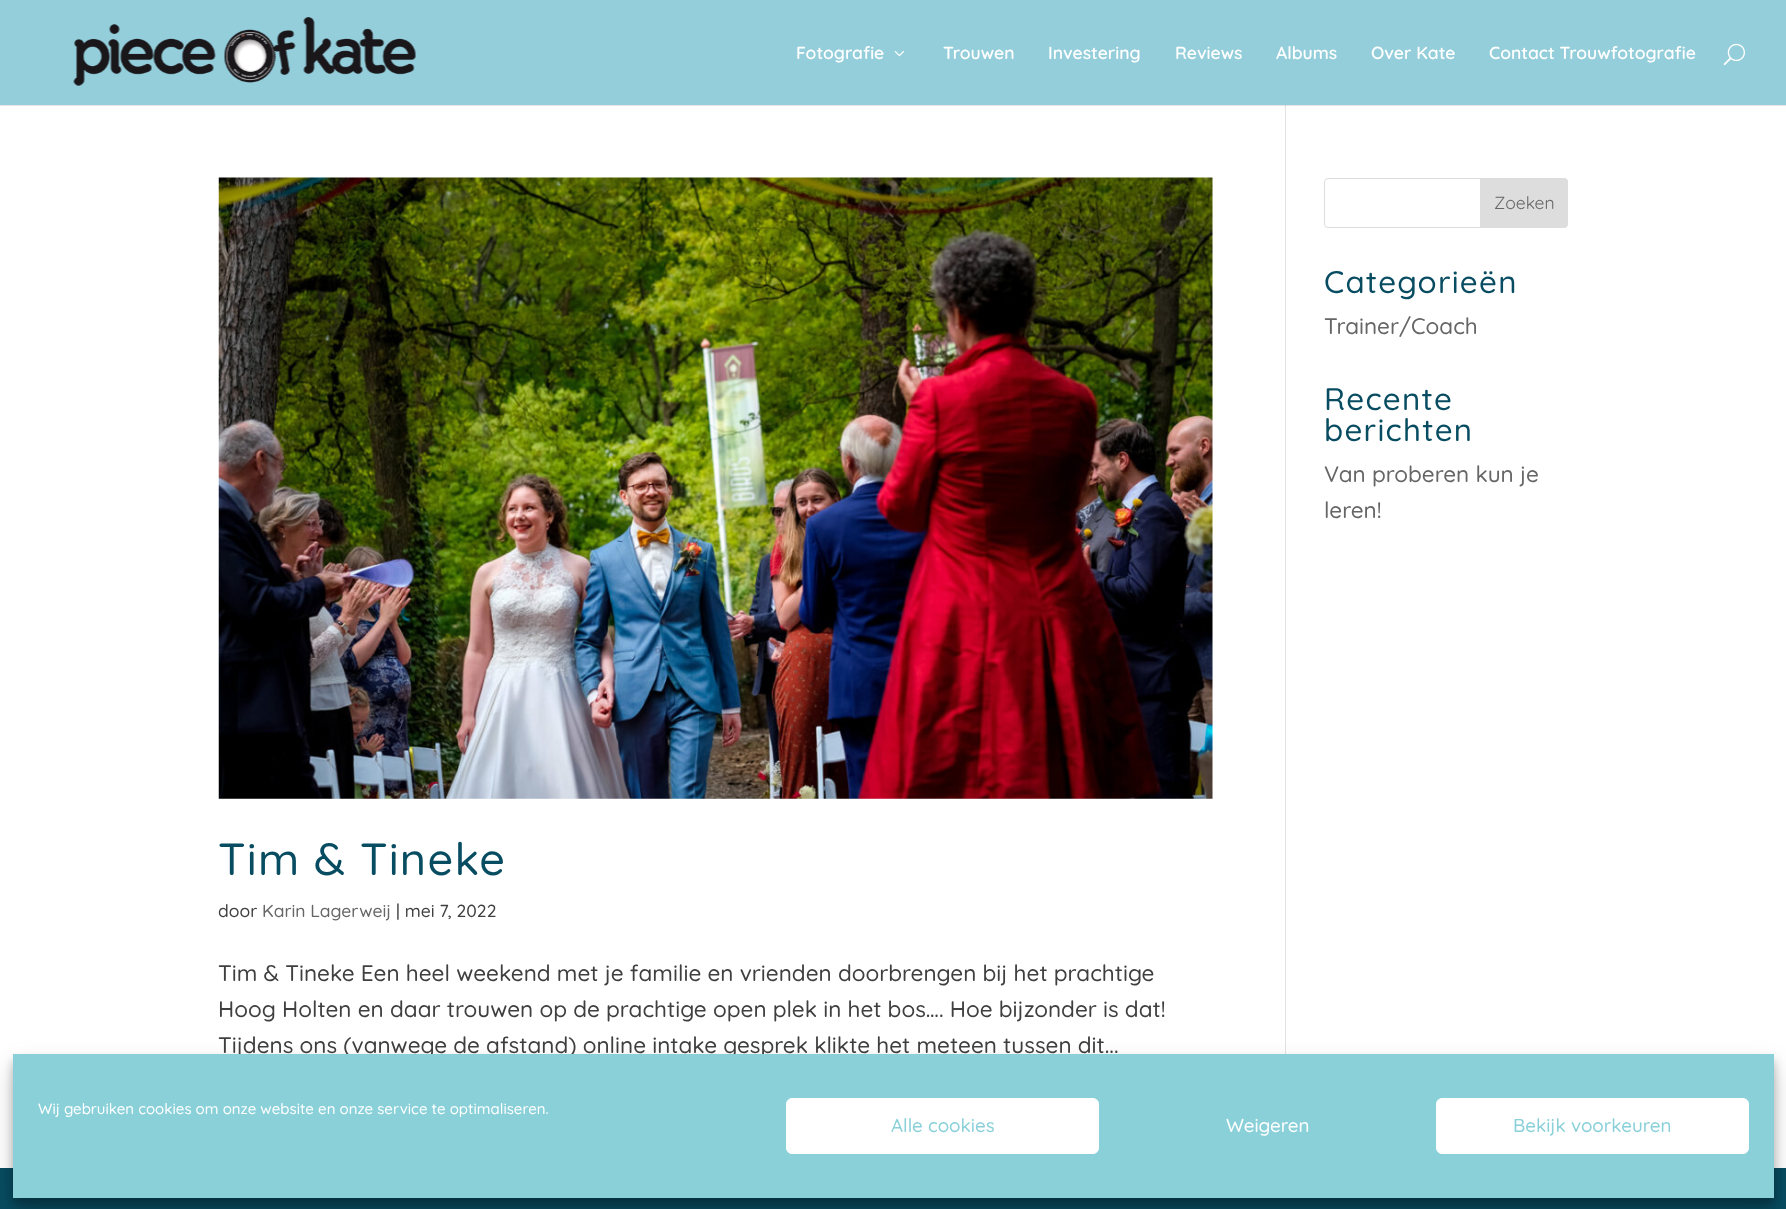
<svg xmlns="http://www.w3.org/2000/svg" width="1786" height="1209">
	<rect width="100%" height="100%" fill="#FFFFFF" />
	<rect x="0" y="105" width="1786" height="1" fill="#E6E6E6" />
	<rect x="0" y="0" width="1786" height="105" fill="#94CEDB" />
	<image x="73" y="17" width="343" height="69" href="assets/img1.png" />
	<text x="796" y="59" font-family="Quicksand" font-size="17.5" font-weight="600" fill="#FFFFFF">Fotografie</text>
	<image x="894" y="51" width="10" height="6" href="assets/img2.png" />
	<g font-family="Quicksand" font-size="17.5" font-weight="600" fill="#FFFFFF">
		<text x="943" y="59">Trouwen</text>
		<text x="1048" y="59">Investering</text>
		<text x="1175" y="59">Reviews</text>
		<text x="1276" y="59">Albums</text>
		<text x="1371" y="59">Over Kate</text>
		<text x="1489" y="59">Contact Trouwfotografie</text>
	</g>
	<image x="1723" y="43" width="22" height="23" href="assets/img3.png" />
	<rect x="1285" y="105" width="1" height="949" fill="#E2E2E2" />
	<rect x="1285" y="105" width="1" height="1" fill="#CBCBCB" />
	<rect x="1324.5" y="178.5" width="243" height="49" rx="3.5" fill="none" stroke="#DDDDDD" />
	<path d="M1480.5 178.5H1564C1566 178.5 1567.5 180 1567.5 182V224C1567.5 226 1566 227.5 1564 227.5H1480.5Z" fill="#DDDDDD" stroke="#DDDDDD" />
	<text x="1494" y="209" font-family="'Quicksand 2'" font-size="17.5" font-weight="300" fill="#666666">Zoeken</text>
	<text x="1324" y="293" font-family="Quicksand" font-size="31.25" font-weight="300" letter-spacing="1.25" fill="#084C61">Categorieën</text>
	<text x="1324" y="334" font-family="Quicksand" font-size="22.5" font-weight="300" fill="#666666">Trainer/Coach</text>
	<g font-family="Quicksand" font-size="31.25" font-weight="300" letter-spacing="1.25" fill="#084C61">
		<text x="1324" y="410">Recente</text>
		<text x="1324" y="441">berichten</text>
	</g>
	<g font-family="Quicksand" font-size="22.5" font-weight="300" fill="#666666">
		<text x="1324" y="482">Van proberen kun je</text>
		<text x="1324" y="518">leren!</text>
	</g>
	<image x="218" y="177" width="995" height="622" href="assets/img4.png" />
	<text x="218" y="875" font-family="Quicksand" font-size="45" font-weight="300" letter-spacing="1.25" fill="#084C61">Tim &amp; Tineke</text>
	<text x="218" y="917" font-family="Quicksand" font-size="17.5" font-weight="300" fill="#3F3F3F">door</text>
	<text x="262" y="917" font-family="Quicksand" font-size="17.5" font-weight="300" fill="#666666">Karin Lagerweij</text>
	<text x="396" y="917" font-family="Quicksand" font-size="17.5" font-weight="300" fill="#3F3F3F">| mei 7, 2022</text>
	<g font-family="Quicksand" font-size="22.5" font-weight="300" fill="#3F3F3F">
		<text x="218" y="981">Tim &amp; Tineke Een heel weekend met je familie en vrienden doorbrengen bij het prachtige</text>
		<text x="218" y="1017">Hoog Holten en daar trouwen op de prachtige open plek in het bos…. Hoe bijzonder is dat!</text>
		<text x="218" y="1053">Tijdens ons (vanwege de afstand) online intake gesprek klikte het meteen tussen dit...</text>
	</g>
	<rect x="0" y="1168" width="1786" height="41" fill="#084C61" />
	<rect x="13" y="1061" width="1761" height="144" fill="#000000" fill-opacity="0.23" filter="blur(4px)" />
	<rect x="13" y="1066" width="1761" height="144" fill="#000000" fill-opacity="0.19" filter="blur(12.5px)" />
	<rect x="13" y="1054" width="1761" height="144" fill="#8AD0D9" />
	<text x="38" y="1114" font-family="Quicksand" font-size="15" font-weight="300" fill="#FFFFFF">Wij gebruiken cookies om onze website en onze service te optimaliseren.</text>
	<rect x="786.5" y="1098.5" width="312" height="55" rx="5.5" fill="#FFFFFF" stroke="#FFFFFF" />
	<text x="891" y="1132" font-family="Quicksand" font-size="18.75" font-weight="300" fill="#8AD0D9">Alle cookies</text>
	<text x="1226" y="1132" font-family="Quicksand" font-size="18.75" font-weight="300" fill="#FFFFFF">Weigeren</text>
	<rect x="1436.5" y="1098.5" width="312" height="55" rx="5.5" fill="#FFFFFF" stroke="#FFFFFF" />
	<text x="1513" y="1132" font-family="Quicksand" font-size="18.75" font-weight="300" fill="#8AD0D9">Bekijk voorkeuren</text>
</svg>
